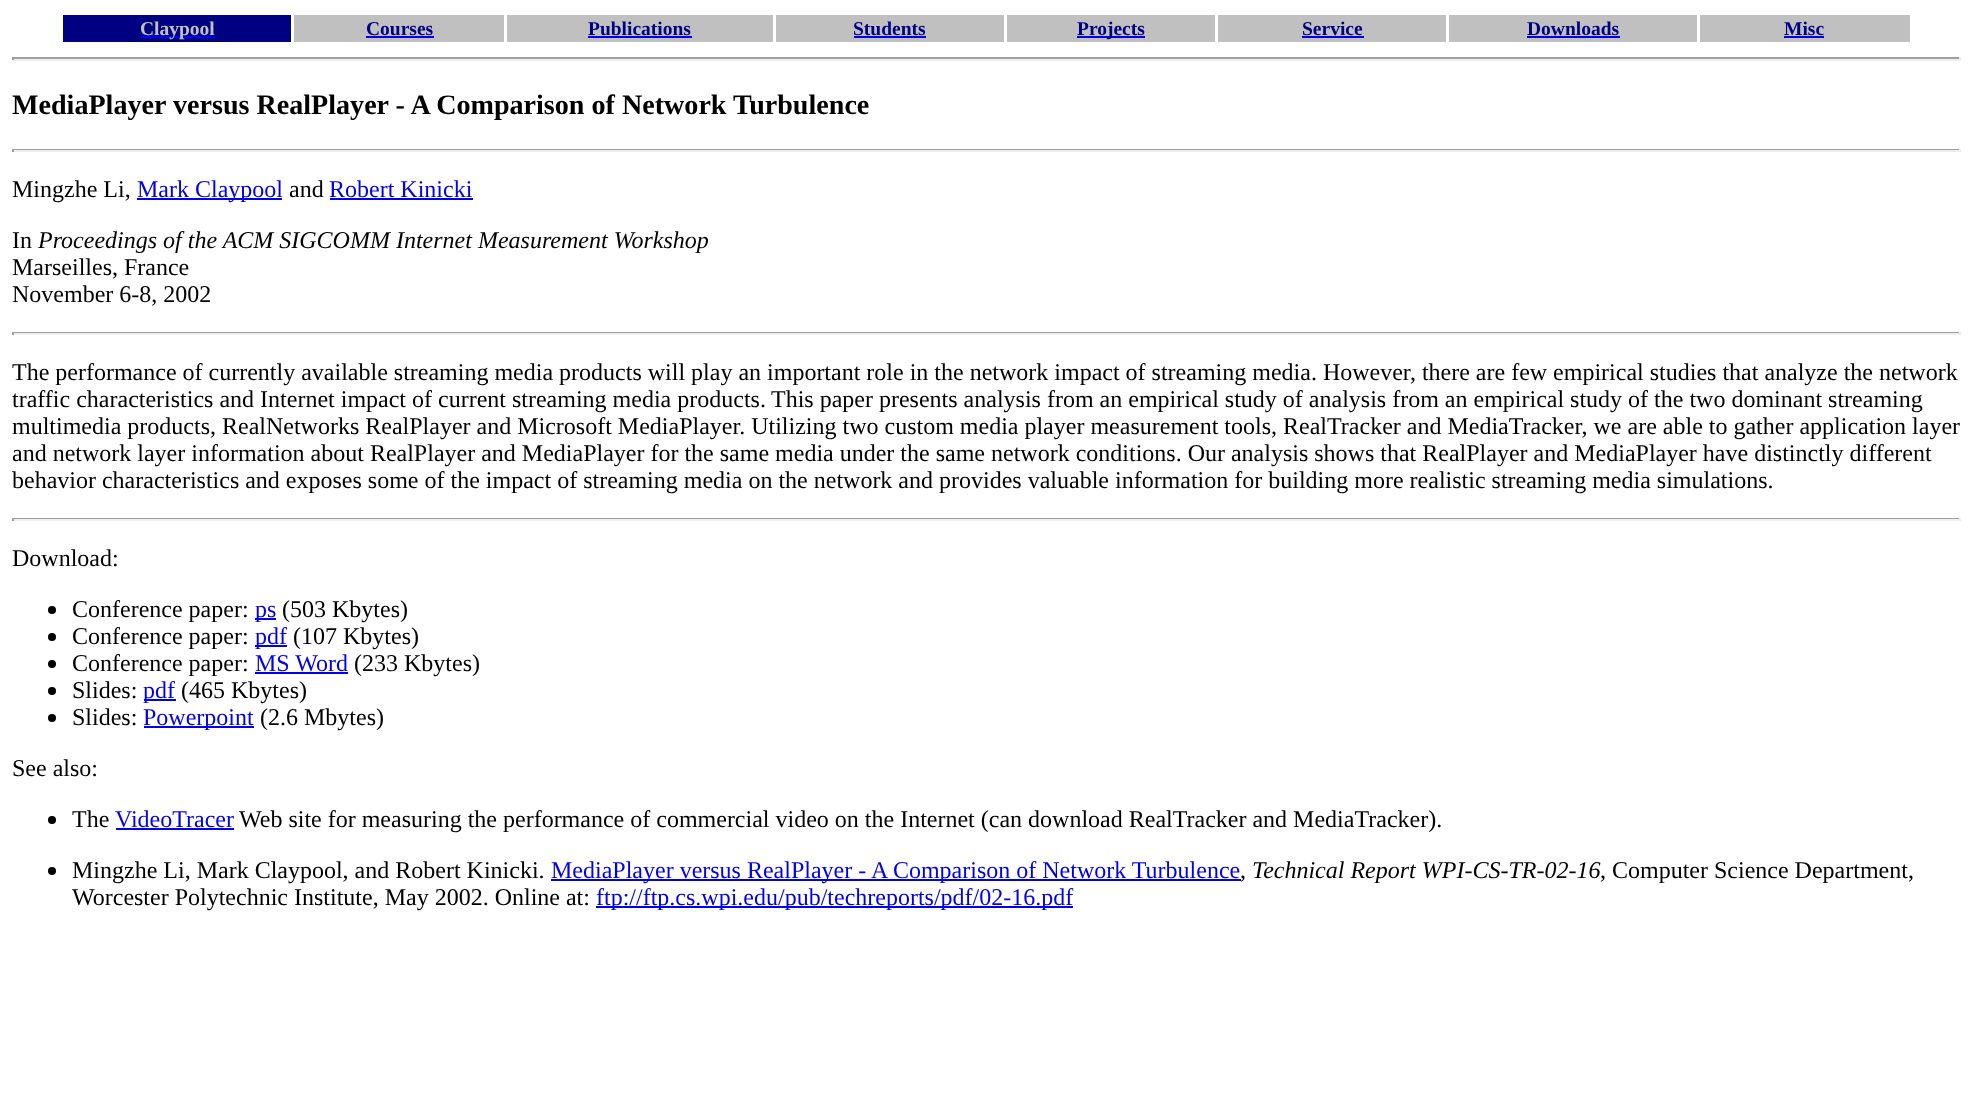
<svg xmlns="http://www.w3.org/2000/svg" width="1972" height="1108">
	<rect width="100%" height="100%" fill="#FFFFFF" />
	<rect x="63" y="15" width="228" height="27" fill="#000080" />
	<rect x="141" y="36" width="74" height="2" fill="#0000EE" />
	<text x="140" y="35" font-family="Liberation Serif" font-size="19.5" font-weight="700" fill="#C0C0C0">Claypool</text>
	<rect x="294" y="15" width="210" height="27" fill="#C0C0C0" />
	<text x="366" y="35" font-family="Liberation Serif" font-size="19.5" font-weight="700" fill="#000080">Courses</text>
	<rect x="366" y="36" width="68" height="2" fill="#0000EE" />
	<rect x="507" y="15" width="266" height="27" fill="#C0C0C0" />
	<text x="588" y="35" font-family="Liberation Serif" font-size="19.5" font-weight="700" fill="#000080">Publications</text>
	<rect x="588" y="36" width="104" height="2" fill="#0000EE" />
	<rect x="776" y="15" width="228" height="27" fill="#C0C0C0" />
	<text x="853" y="35" font-family="Liberation Serif" font-size="19.5" font-weight="700" fill="#000080">Students</text>
	<rect x="854" y="36" width="72" height="2" fill="#0000EE" />
	<rect x="1007" y="15" width="208" height="27" fill="#C0C0C0" />
	<rect x="1077" y="36" width="68" height="2" fill="#0000EE" />
	<text x="1077" y="35" font-family="Liberation Serif" font-size="19.5" font-weight="700" fill="#000080">Projects</text>
	<rect x="1218" y="15" width="228" height="27" fill="#C0C0C0" />
	<text x="1302" y="35" font-family="Liberation Serif" font-size="19.5" font-weight="700" fill="#000080">Service</text>
	<rect x="1302" y="36" width="62" height="2" fill="#0000EE" />
	<rect x="1449" y="15" width="248" height="27" fill="#C0C0C0" />
	<text x="1527" y="35" font-family="Liberation Serif" font-size="19.5" font-weight="700" fill="#000080">Downloads</text>
	<rect x="1527" y="36" width="93" height="2" fill="#0000EE" />
	<rect x="1700" y="15" width="210" height="27" fill="#C0C0C0" />
	<text x="1784" y="35" font-family="Liberation Serif" font-size="19.5" font-weight="700" fill="#000080">Misc</text>
	<rect x="1784" y="36" width="40" height="2" fill="#0000EE" />
	<rect x="12" y="57" width="1949" height="2" fill="#9F9F9F" />
	<rect x="1959" y="57" width="2" height="3" fill="#EEEEEE" />
	<rect x="12" y="59" width="1949" height="2" fill="#EEEEEE" />
	<rect x="12" y="57" width="2" height="3" fill="#9F9F9F" />
	<text x="12" y="114" font-family="Liberation Serif" font-size="28.1" font-weight="700" fill="#000000">MediaPlayer versus RealPlayer - A Comparison of Network Turbulence</text>
	<rect x="12" y="149" width="1949" height="1" fill="#9F9F9F" />
	<rect x="1959" y="149" width="2" height="3" fill="#EEEEEE" />
	<rect x="12" y="150" width="1949" height="2" fill="#EEEEEE" />
	<rect x="12" y="149" width="2" height="3" fill="#9F9F9F" />
	<text x="12" y="197" font-family="Liberation Serif" font-size="24" fill="#000000">Mingzhe Li,</text>
	<rect x="137" y="198" width="145" height="2" fill="#0000EE" />
	<text x="137" y="197" font-family="Liberation Serif" font-size="24" fill="#0000EE">Mark Claypool</text>
	<text x="289" y="197" font-family="Liberation Serif" font-size="24" fill="#000000">and</text>
	<text x="329" y="197" font-family="Liberation Serif" font-size="24" fill="#0000EE">Robert Kinicki</text>
	<rect x="330" y="198" width="143" height="2" fill="#0000EE" />
	<text x="12" y="248" font-family="Liberation Serif" font-size="24" fill="#000000">In</text>
	<text x="38" y="248" font-family="Liberation Serif" font-size="24" font-style="italic" fill="#000000">Proceedings of the ACM SIGCOMM Internet Measurement Workshop</text>
	<g font-family="Liberation Serif" font-size="24" fill="#000000">
		<text x="12" y="275">Marseilles, France</text>
		<text x="12" y="302">November 6-8, 2002</text>
	</g>
	<rect x="12" y="332" width="1949" height="1" fill="#9F9F9F" />
	<rect x="1959" y="332" width="2" height="3" fill="#EEEEEE" />
	<rect x="12" y="333" width="1949" height="2" fill="#EEEEEE" />
	<rect x="12" y="332" width="2" height="3" fill="#9F9F9F" />
	<g font-family="Liberation Serif" font-size="24" fill="#000000">
		<text x="12" y="380">The performance of currently available streaming media products will play an important role in the network impact of streaming media. However, there are few empirical studies that analyze the network</text>
		<text x="12" y="407">traffic characteristics and Internet impact of current streaming media products.</text>
		<text x="771" y="407">This paper presents analysis from an empirical study of analysis from an empirical study of the two dominant streaming</text>
		<text x="12" y="434">multimedia products, RealNetworks RealPlayer and Microsoft MediaPlayer. Utilizing two custom media player measurement tools, RealTracker and MediaTracker, we are able to gather application layer</text>
		<text x="12" y="461">and network layer information about RealPlayer and MediaPlayer for the same media under the same network conditions. Our analysis shows that RealPlayer and MediaPlayer have distinctly different</text>
		<text x="12" y="488">behavior characteristics and exposes some of the impact of streaming media on the network and provides valuable information for building more realistic streaming media simulations.</text>
	</g>
	<rect x="12" y="518" width="1949" height="1" fill="#9F9F9F" />
	<rect x="1959" y="518" width="2" height="3" fill="#EEEEEE" />
	<rect x="12" y="519" width="1949" height="2" fill="#EEEEEE" />
	<rect x="12" y="518" width="2" height="3" fill="#9F9F9F" />
	<text x="12" y="566" font-family="Liberation Serif" font-size="24" fill="#000000">Download:</text>
	<circle cx="52" cy="610" r="4" fill="#000000" />
	<text x="72" y="617" font-family="Liberation Serif" font-size="24" fill="#000000">Conference paper:</text>
	<rect x="255" y="618" width="21" height="2" fill="#0000EE" />
	<text x="255" y="617" font-family="Liberation Serif" font-size="24" fill="#0000EE">ps</text>
	<text x="282" y="617" font-family="Liberation Serif" font-size="24" fill="#000000">(503 Kbytes)</text>
	<circle cx="52" cy="637" r="4" fill="#000000" />
	<text x="72" y="644" font-family="Liberation Serif" font-size="24" fill="#000000">Conference paper:</text>
	<rect x="255" y="645" width="32" height="2" fill="#0000EE" />
	<text x="255" y="644" font-family="Liberation Serif" font-size="24" fill="#0000EE">pdf</text>
	<text x="293" y="644" font-family="Liberation Serif" font-size="24" fill="#000000">(107 Kbytes)</text>
	<circle cx="52" cy="664" r="4" fill="#000000" />
	<text x="72" y="671" font-family="Liberation Serif" font-size="24" fill="#000000">Conference paper:</text>
	<text x="255" y="671" font-family="Liberation Serif" font-size="24" fill="#0000EE">MS Word</text>
	<rect x="255" y="672" width="93" height="2" fill="#0000EE" />
	<text x="354" y="671" font-family="Liberation Serif" font-size="24" fill="#000000">(233 Kbytes)</text>
	<circle cx="52" cy="691" r="4" fill="#000000" />
	<text x="72" y="698" font-family="Liberation Serif" font-size="24" fill="#000000">Slides:</text>
	<rect x="144" y="699" width="32" height="2" fill="#0000EE" />
	<text x="143" y="698" font-family="Liberation Serif" font-size="24" fill="#0000EE">pdf</text>
	<text x="181" y="698" font-family="Liberation Serif" font-size="24" fill="#000000">(465 Kbytes)</text>
	<circle cx="52" cy="718" r="4" fill="#000000" />
	<text x="72" y="725" font-family="Liberation Serif" font-size="24" fill="#000000">Slides:</text>
	<rect x="144" y="726" width="110" height="2" fill="#0000EE" />
	<text x="143" y="725" font-family="Liberation Serif" font-size="24" fill="#0000EE">Powerpoint</text>
	<g font-family="Liberation Serif" font-size="24" fill="#000000">
		<text x="260" y="725">(2.6 Mbytes)</text>
		<text x="12" y="776">See also:</text>
	</g>
	<circle cx="52" cy="820" r="4" fill="#000000" />
	<text x="72" y="827" font-family="Liberation Serif" font-size="24" fill="#000000">The</text>
	<text x="115" y="827" font-family="Liberation Serif" font-size="24" fill="#0000EE">VideoTracer</text>
	<rect x="116" y="828" width="118" height="2" fill="#0000EE" />
	<text x="239" y="827" font-family="Liberation Serif" font-size="24" fill="#000000">Web site for measuring the performance of commercial video on the Internet (can download RealTracker and MediaTracker).</text>
	<circle cx="52" cy="871" r="4" fill="#000000" />
	<text x="72" y="878" font-family="Liberation Serif" font-size="24" fill="#000000">Mingzhe Li, Mark Claypool, and Robert Kinicki.</text>
	<rect x="551" y="879" width="690" height="2" fill="#0000EE" />
	<text x="551" y="878" font-family="Liberation Serif" font-size="24" fill="#0000EE">MediaPlayer versus RealPlayer - A Comparison of Network Turbulence</text>
	<text x="1240" y="878" font-family="Liberation Serif" font-size="24" fill="#000000">,</text>
	<text x="1252" y="878" font-family="Liberation Serif" font-size="24" font-style="italic" fill="#000000">Technical Report WPI-CS-TR-02-16</text>
	<g font-family="Liberation Serif" font-size="24" fill="#000000">
		<text x="1600" y="878">, Computer Science Department,</text>
		<text x="72" y="905">Worcester Polytechnic Institute, May 2002. Online at:</text>
	</g>
	<rect x="596" y="906" width="477" height="2" fill="#0000EE" />
	<text x="596" y="905" font-family="Liberation Serif" font-size="24" fill="#0000EE">ftp://ftp.cs.wpi.edu/pub/techreports/pdf/02-16.pdf</text>
</svg>
